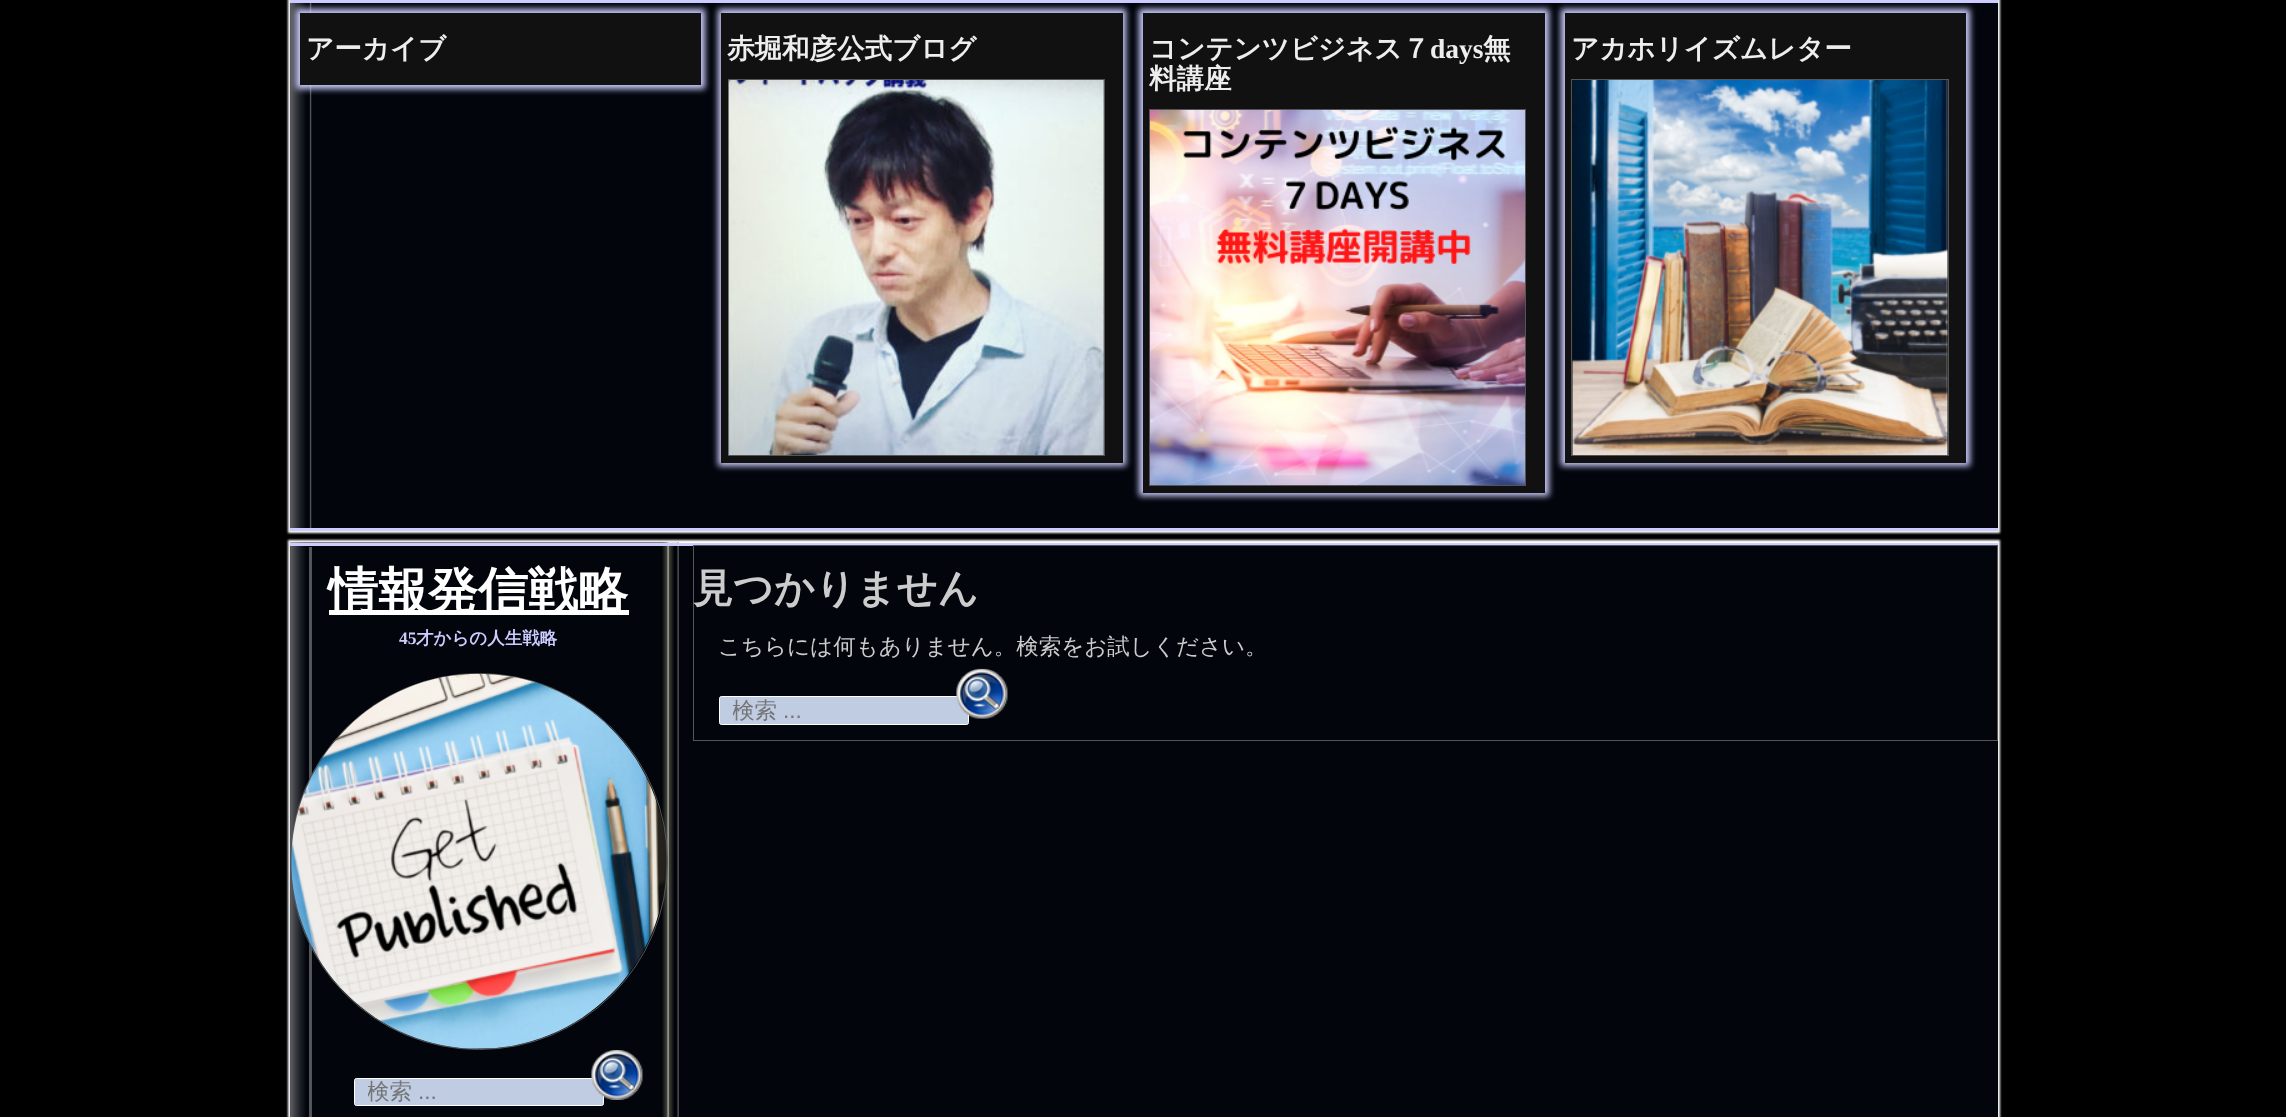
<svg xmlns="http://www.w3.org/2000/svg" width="2286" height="1117">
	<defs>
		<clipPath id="clip1"><rect x="368" y="1076" width="202" height="30" /></clipPath>
		<clipPath id="clip2"><rect x="733" y="695" width="202" height="30" /></clipPath>
	</defs>
	<rect width="100%" height="100%" fill="#000000" />
	<rect x="288" y="-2" width="1712" height="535" fill="#FFFFFF" filter="blur(1px)" />
	<rect x="311" y="3" width="1687" height="525" fill="#02050C" />
	<image x="290" y="3" width="22" height="525" href="assets/img1.png" />
	<rect x="290" y="0" width="1708" height="3" fill="#CCCCFF" />
	<rect x="290" y="528" width="1708" height="3" fill="#CCCCFF" />
	<rect x="296" y="9" width="409" height="80" fill="#CCCCFF" filter="blur(3px)" />
	<rect x="300" y="13" width="401" height="72" fill="#111111" />
	<text x="306" y="58" font-family="WenQuanYi Zen Hei" font-size="27.5" font-weight="700" fill="#EEEEEE">アーカイブ</text>
	<rect x="718" y="9" width="408" height="457" fill="#CCCCFF" filter="blur(3px)" />
	<rect x="721" y="13" width="402" height="450" fill="#111111" />
	<text x="727" y="58" font-family="WenQuanYi Zen Hei" font-size="27.5" font-weight="700" fill="#EEEEEE">赤堀和彦公式ブログ</text>
	<rect x="728.5" y="79.5" width="376" height="376" fill="none" stroke="#555555" />
	<image x="728" y="80" width="376" height="375" href="assets/img2.png" />
	<rect x="1139" y="9" width="410" height="487" fill="#CCCCFF" filter="blur(3px)" />
	<rect x="1143" y="13" width="402" height="480" fill="#111111" />
	<text x="1149" y="58" font-family="WenQuanYi Zen Hei" font-size="27.5" font-weight="700" fill="#EEEEEE">コンテンツビジネス７</text>
	<text x="1430" y="58" font-family="Liberation Serif" font-size="27.5" font-weight="700" fill="#EEEEEE">days</text>
	<g font-family="WenQuanYi Zen Hei" font-size="27.5" font-weight="700" fill="#EEEEEE">
		<text x="1483" y="58">無</text>
		<text x="1149" y="88">料講座</text>
	</g>
	<rect x="1149.5" y="109.5" width="376" height="376" fill="none" stroke="#555555" />
	<image x="1150" y="110" width="375" height="375" href="assets/img3.png" />
	<rect x="1561" y="9" width="409" height="457" fill="#CCCCFF" filter="blur(3px)" />
	<rect x="1565" y="13" width="401" height="450" fill="#111111" />
	<text x="1571" y="58" font-family="WenQuanYi Zen Hei" font-size="27.5" font-weight="700" fill="#EEEEEE">アカホリイズムレター</text>
	<rect x="1571.5" y="79.5" width="377" height="376" fill="none" stroke="#555555" />
	<image x="1572" y="80" width="376" height="375" href="assets/img4.png" />
	<rect x="288" y="540" width="1712" height="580" fill="#FFFFFF" filter="blur(1px)" />
	<rect x="290" y="546" width="1708" height="571" fill="#02050C" />
	<image x="290" y="542" width="389" height="575" href="assets/img7.png" />
	<rect x="309" y="547" width="3" height="570" fill="#535559" />
	<rect x="329" y="610" width="300" height="5" fill="#FFFFFF" />
	<text x="328" y="608" font-family="WenQuanYi Zen Hei" font-size="50" font-weight="700" fill="#FFFFFF">情報発信戦略</text>
	<text x="399" y="644" font-family="Liberation Serif" font-size="17.5" font-weight="700" fill="#CCCCFF">45</text>
	<text x="416" y="644" font-family="WenQuanYi Zen Hei" font-size="17.5" font-weight="700" fill="#CCCCFF">才からの人生戦略</text>
	<rect x="290.5" y="673.5" width="377" height="376" rx="188" fill="none" stroke="#555555" />
	<image x="291" y="673" width="375" height="376" href="assets/img5.png" />
	<rect x="354.5" y="1078.5" width="249" height="27" rx="2" fill="#BFCCE2" stroke="#FFFFFF" />
	<g clip-path="url(#clip1)">
		<text x="367" y="1099" font-family="WenQuanYi Zen Hei" font-size="22.5" font-weight="500" fill="#757575">検索</text>
	</g>
	<text x="418" y="1099" font-family="Liberation Sans" font-size="22.5" fill="#757575">...</text>
	<image x="591" y="1050" width="52" height="50" href="assets/img6.png" />
	<rect x="290" y="543" width="1708" height="3" fill="#CCCCFF" />
	<rect x="693.5" y="545.5" width="1304" height="195" fill="none" stroke="#555555" />
	<text x="693" y="602" font-family="WenQuanYi Zen Hei" font-size="40" font-weight="700" fill="#CCCCCC">見つかりません</text>
	<text x="718" y="654" font-family="WenQuanYi Zen Hei" font-size="22.5" font-weight="500" fill="#CCCCCC">こちらには何もありません。検索をお試しください。</text>
	<rect x="719.5" y="696.5" width="249" height="28" rx="2" fill="#BFCCE2" stroke="#FFFFFF" />
	<g clip-path="url(#clip2)">
		<text x="732" y="718" font-family="WenQuanYi Zen Hei" font-size="22.5" font-weight="500" fill="#757575">検索</text>
	</g>
	<text x="783" y="718" font-family="Liberation Sans" font-size="22.5" fill="#757575">...</text>
	<image x="956" y="668" width="52" height="51" href="assets/img8.png" />
</svg>
